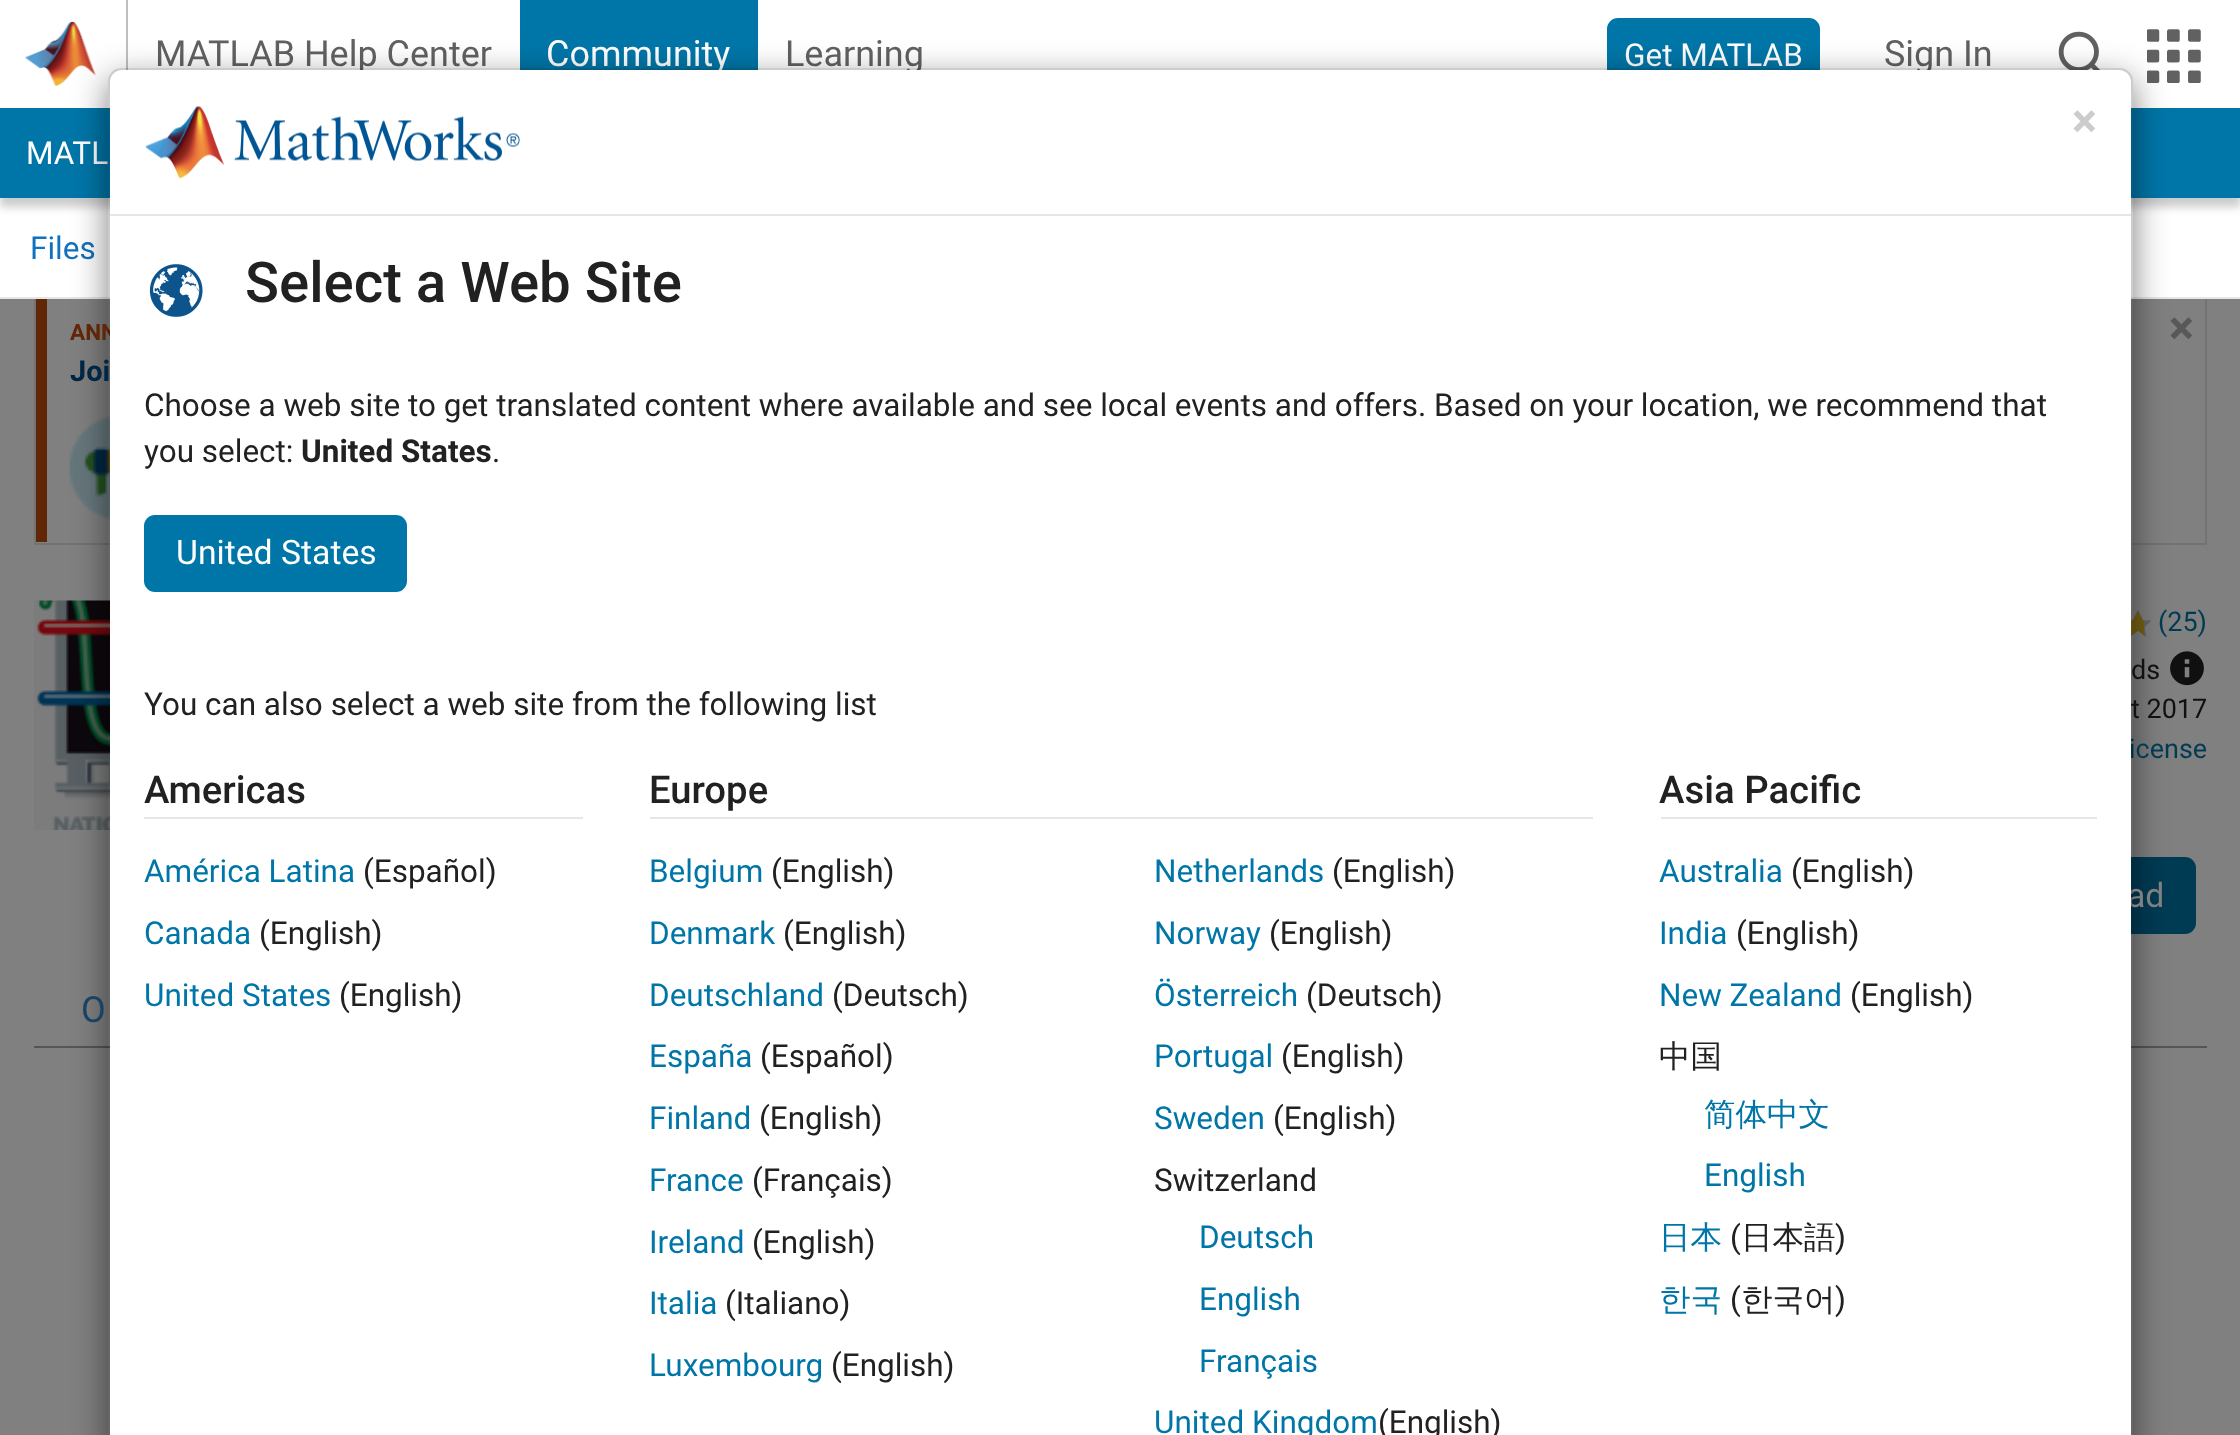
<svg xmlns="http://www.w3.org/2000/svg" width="2240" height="1435">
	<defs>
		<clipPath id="clip1"><path d="M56 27H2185V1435H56ZM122 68H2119C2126.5 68 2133 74.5 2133 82V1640C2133 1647.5 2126.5 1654 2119 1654H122C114.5 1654 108 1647.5 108 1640V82C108 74.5 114.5 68 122 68Z" clip-rule="evenodd" /></clipPath>
	</defs>
	<rect width="100%" height="100%" fill="#808080" />
	<rect x="0" y="0" width="2240" height="108" fill="#FFFFFF" />
	<rect x="126" y="0" width="2" height="70" fill="#BFBFBF" />
	<image x="24" y="21" width="72" height="65" href="assets/img1.png" />
	<text x="155" y="66" font-family="Roboto" font-size="36" fill="#616161">MATLAB Help Center</text>
	<rect x="520" y="0" width="238" height="70" fill="#0076A8" />
	<text x="546" y="66" font-family="Roboto" font-size="36" fill="#FFFFFF">Community</text>
	<text x="785" y="66" font-family="Roboto" font-size="36" fill="#616161">Learning</text>
	<rect x="1608" y="19" width="211" height="70" rx="10" fill="#0076A8" stroke="#0076A8" stroke-width="2" />
	<text x="1624" y="66" font-family="Roboto" font-size="31.5" fill="#FFFFFF">Get MATLAB</text>
	<text x="1884" y="66" font-family="Roboto" font-size="36" fill="#616161">Sign In</text>
	<image x="2058" y="31" width="42" height="39" href="assets/img2.png" />
	<image x="2147" y="29" width="54" height="54" href="assets/img3.png" />
	<rect x="35" y="294" width="2171" height="250" fill="none" stroke="#737373" stroke-width="2" />
	<rect x="0" y="198" width="2240" height="99" fill="#FFFFFF" />
	<rect x="0" y="117" width="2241" height="90" fill="#000000" fill-opacity="0.2" filter="blur(4.5px)" />
	<rect x="0" y="108" width="2240" height="90" fill="#0076A8" />
	<text x="26" y="164" font-family="Roboto" font-size="31.5" fill="#FFFFFF">MATL</text>
	<rect x="0" y="297" width="2240" height="2" fill="#E6E6E6" />
	<text x="30" y="259" font-family="Roboto" font-size="31.5" fill="#1171BE">Files</text>
	<image x="69" y="416" width="41" height="104" href="assets/img6.png" />
	<image x="34" y="600" width="76" height="230" href="assets/img7.png" />
	<image x="2131" y="610" width="21" height="27" href="assets/img8.png" />
	<image x="2131" y="610" width="13" height="26" href="assets/img9.png" />
	<image x="2170" y="651" width="34" height="35" href="assets/img10.png" />
	<rect x="1982" y="857" width="214" height="77" rx="11" fill="#003B54" />
	<rect x="34" y="1046" width="2173" height="2" fill="#555555" />
	<g clip-path="url(#clip1)">
		<rect x="108" y="79" width="2025" height="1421" rx="14" fill="#000000" fill-opacity="0.5" filter="blur(17px)" />
	</g>
	<text x="70" y="340" font-family="Roboto" font-size="22.5" font-weight="700" fill="#602606">ANN</text>
	<text x="2129" y="758" font-family="Roboto" font-size="27" fill="#003B54">icense</text>
	<text x="2127" y="907" font-family="Roboto" font-size="33.75" fill="#808080">ad</text>
	<path d="M121 70H2120C2126 70 2131 75 2131 81V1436H110V81C110 75 115 70 121 70Z" fill="#FFFFFF" />
	<text x="70" y="381" font-family="Roboto" font-size="29" font-weight="700" fill="#002644">Joi</text>
	<g font-family="Roboto" font-size="27" fill="#111111">
		<text x="2131" y="679">ds</text>
		<text x="2131" y="718">t 2017</text>
	</g>
	<rect x="109" y="69" width="2023" height="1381" rx="13" fill="none" stroke="#000000" stroke-opacity="0.2" stroke-width="2" />
	<rect x="110" y="214" width="2021" height="2" fill="#E5E5E5" />
	<image x="145" y="106" width="375" height="73" href="assets/img4.png" />
	<text x="2072" y="137" font-family="Roboto" font-size="47" font-weight="700" fill="#CCCCCC">×</text>
	<image x="149" y="264" width="54" height="53" href="assets/img5.png" />
	<text x="245" y="302" font-family="Roboto" font-size="56.25" font-weight="500" fill="#212121">Select a Web Site</text>
	<g font-family="Roboto" font-size="31.5" fill="#212121">
		<text x="144" y="416">Choose a web site to get translated content where available and see local events and offers. Based on your location, we recommend that</text>
		<text x="144" y="462">you select:</text>
	</g>
	<text x="301" y="462" font-family="Roboto" font-size="31.5" font-weight="700" fill="#212121">United States</text>
	<text x="492" y="462" font-family="Roboto" font-size="31.5" fill="#212121">.</text>
	<rect x="144" y="515" width="263" height="77" rx="11" fill="#0076A8" />
	<text x="176" y="564" font-family="Roboto" font-size="33.75" fill="#FFFFFF">United States</text>
	<text x="144" y="715" font-family="Roboto" font-size="31.5" fill="#212121">You can also select a web site from the following list</text>
	<rect x="144" y="817" width="439" height="2" fill="#E6E6E6" />
	<text x="144" y="803" font-family="Roboto" font-size="38.25" font-weight="500" fill="#212121">Americas</text>
	<text x="144" y="882" font-family="Roboto" font-size="31.5" fill="#0076A8">América Latina</text>
	<text x="363" y="882" font-family="Roboto" font-size="31.5" fill="#212121">(Español)</text>
	<text x="144" y="944" font-family="Roboto" font-size="31.5" fill="#0076A8">Canada</text>
	<text x="259" y="944" font-family="Roboto" font-size="31.5" fill="#212121">(English)</text>
	<text x="144" y="1006" font-family="Roboto" font-size="31.5" fill="#0076A8">United States</text>
	<text x="339" y="1006" font-family="Roboto" font-size="31.5" fill="#212121">(English)</text>
	<rect x="650" y="817" width="943" height="2" fill="#E6E6E6" />
	<text x="649" y="803" font-family="Roboto" font-size="38.25" font-weight="500" fill="#212121">Europe</text>
	<text x="649" y="882" font-family="Roboto" font-size="31.5" fill="#0076A8">Belgium</text>
	<text x="771" y="882" font-family="Roboto" font-size="31.5" fill="#212121">(English)</text>
	<text x="649" y="944" font-family="Roboto" font-size="31.5" fill="#0076A8">Denmark</text>
	<text x="783" y="944" font-family="Roboto" font-size="31.5" fill="#212121">(English)</text>
	<text x="649" y="1006" font-family="Roboto" font-size="31.5" fill="#0076A8">Deutschland</text>
	<text x="832" y="1006" font-family="Roboto" font-size="31.5" fill="#212121">(Deutsch)</text>
	<text x="649" y="1067" font-family="Roboto" font-size="31.5" fill="#0076A8">España</text>
	<text x="760" y="1067" font-family="Roboto" font-size="31.5" fill="#212121">(Español)</text>
	<text x="649" y="1129" font-family="Roboto" font-size="31.5" fill="#0076A8">Finland</text>
	<text x="759" y="1129" font-family="Roboto" font-size="31.5" fill="#212121">(English)</text>
	<text x="649" y="1191" font-family="Roboto" font-size="31.5" fill="#0076A8">France</text>
	<text x="752" y="1191" font-family="Roboto" font-size="31.5" fill="#212121">(Français)</text>
	<text x="649" y="1253" font-family="Roboto" font-size="31.5" fill="#0076A8">Ireland</text>
	<text x="752" y="1253" font-family="Roboto" font-size="31.5" fill="#212121">(English)</text>
	<text x="649" y="1314" font-family="Roboto" font-size="31.5" fill="#0076A8">Italia</text>
	<text x="725" y="1314" font-family="Roboto" font-size="31.5" fill="#212121">(Italiano)</text>
	<text x="649" y="1376" font-family="Roboto" font-size="31.5" fill="#0076A8">Luxembourg</text>
	<text x="831" y="1376" font-family="Roboto" font-size="31.5" fill="#212121">(English)</text>
	<text x="1154" y="882" font-family="Roboto" font-size="31.5" fill="#0076A8">Netherlands</text>
	<text x="1332" y="882" font-family="Roboto" font-size="31.5" fill="#212121">(English)</text>
	<text x="1154" y="944" font-family="Roboto" font-size="31.5" fill="#0076A8">Norway</text>
	<text x="1269" y="944" font-family="Roboto" font-size="31.5" fill="#212121">(English)</text>
	<text x="1154" y="1006" font-family="Roboto" font-size="31.5" fill="#0076A8">Österreich</text>
	<text x="1306" y="1006" font-family="Roboto" font-size="31.5" fill="#212121">(Deutsch)</text>
	<text x="1154" y="1067" font-family="Roboto" font-size="31.5" fill="#0076A8">Portugal</text>
	<text x="1281" y="1067" font-family="Roboto" font-size="31.5" fill="#212121">(English)</text>
	<text x="1154" y="1129" font-family="Roboto" font-size="31.5" fill="#0076A8">Sweden</text>
	<g font-family="Roboto" font-size="31.5" fill="#212121">
		<text x="1273" y="1129">(English)</text>
		<text x="1154" y="1191">Switzerland</text>
	</g>
	<g font-family="Roboto" font-size="31.5" fill="#0076A8">
		<text x="1199" y="1248">Deutsch</text>
		<text x="1199" y="1310">English</text>
		<text x="1199" y="1372">Français</text>
		<text x="1154" y="1433">United Kingdom</text>
	</g>
	<text x="1378" y="1433" font-family="Roboto" font-size="31.5" fill="#212121">(English)</text>
	<rect x="1661" y="817" width="436" height="2" fill="#E6E6E6" />
	<text x="1659" y="803" font-family="Roboto" font-size="38.25" font-weight="500" fill="#212121">Asia Pacific</text>
	<text x="1659" y="882" font-family="Roboto" font-size="31.5" fill="#0076A8">Australia</text>
	<text x="1791" y="882" font-family="Roboto" font-size="31.5" fill="#212121">(English)</text>
	<text x="1659" y="944" font-family="Roboto" font-size="31.5" fill="#0076A8">India</text>
	<text x="1736" y="944" font-family="Roboto" font-size="31.5" fill="#212121">(English)</text>
	<text x="1659" y="1006" font-family="Roboto" font-size="31.5" fill="#0076A8">New Zealand</text>
	<text x="1850" y="1006" font-family="Roboto" font-size="31.5" fill="#212121">(English)</text>
	<text x="1659" y="1067" font-family="WenQuanYi Zen Hei" font-size="31.5" font-weight="500" fill="#212121">中国</text>
	<text x="1704" y="1125" font-family="WenQuanYi Zen Hei" font-size="31.5" font-weight="500" fill="#0076A8">简体中文</text>
	<text x="1704" y="1186" font-family="Roboto" font-size="31.5" fill="#0076A8">English</text>
	<text x="1659" y="1248" font-family="WenQuanYi Zen Hei" font-size="31.5" font-weight="500" fill="#0076A8">日本</text>
	<text x="1730" y="1248" font-family="Roboto" font-size="31.5" fill="#212121">(</text>
	<text x="1741" y="1248" font-family="WenQuanYi Zen Hei" font-size="31.5" font-weight="500" fill="#212121">日本語</text>
	<text x="1835" y="1248" font-family="Roboto" font-size="31.5" fill="#212121">)</text>
	<text x="1659" y="1310" font-family="WenQuanYi Zen Hei" font-size="31.5" font-weight="500" fill="#0076A8">한국</text>
	<text x="1730" y="1310" font-family="Roboto" font-size="31.5" fill="#212121">(</text>
	<text x="1741" y="1310" font-family="WenQuanYi Zen Hei" font-size="31.5" font-weight="500" fill="#212121">한국어</text>
	<text x="1835" y="1310" font-family="Roboto" font-size="31.5" fill="#212121">)</text>
	<rect x="36" y="299" width="11" height="243" fill="#602606" />
	<text x="2169" y="344" font-family="Roboto" font-size="47" font-weight="700" fill="#585858">×</text>
	<text x="2158" y="631" font-family="Roboto" font-size="27" fill="#003B54">(25)</text>
	<text x="81" y="1022" font-family="Roboto" font-size="36" fill="#1B4263">O</text>
</svg>
